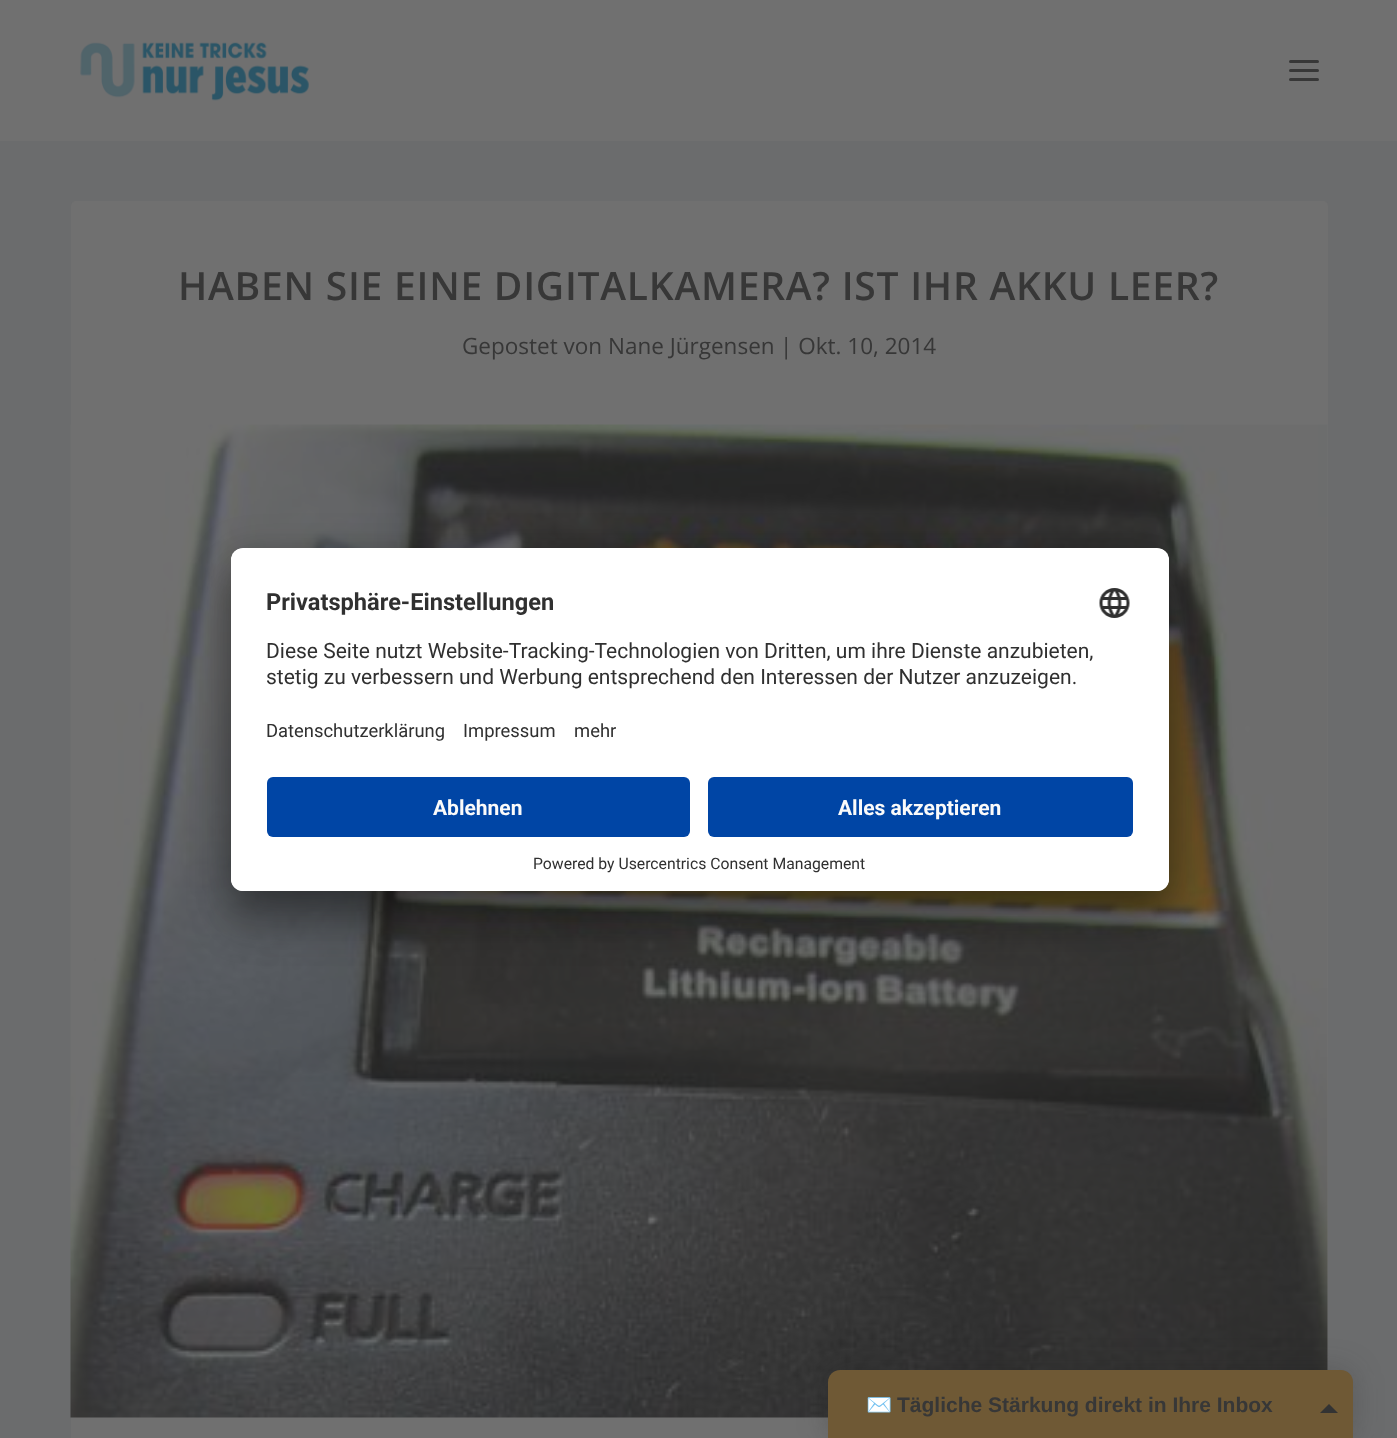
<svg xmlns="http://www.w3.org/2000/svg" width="1397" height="1438">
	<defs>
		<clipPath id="clip1"><rect x="231" y="548" width="938" height="343" rx="12" /></clipPath>
		<clipPath id="clip2"><path d="M243 548H1157C1163.5 548 1169 553.5 1169 560V765H231V560C231 553.5 236.5 548 243 548Z" /></clipPath>
	</defs>
	<rect width="100%" height="100%" fill="#6B6C6D" />
	<rect x="0" y="0" width="1397" height="141" fill="#707070" />
	<image x="80" y="42" width="229" height="59" href="assets/img1.png" />
	<rect x="1289" y="60" width="30" height="3" rx="1.5" fill="#373737" />
	<rect x="1289" y="69" width="30" height="3" rx="1.5" fill="#373737" />
	<rect x="1289" y="78" width="30" height="3" rx="1.5" fill="#373737" />
	<rect x="71" y="201" width="1257" height="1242" rx="5" fill="#707070" />
	<text x="178" y="300" font-family="Open Sans" font-size="39" font-weight="600" letter-spacing="0.75" fill="#373737">HABEN SIE EINE DIGITALKAMERA? IST IHR AKKU LEER?</text>
	<g font-family="Open Sans" font-size="22.5" fill="#373737">
		<text x="462" y="354">Gepostet von</text>
		<text x="608" y="354">Nane Jürgensen</text>
		<text x="780" y="354">| Okt. 10, 2014</text>
	</g>
	<image x="70" y="424" width="1258" height="994" href="assets/img2.png" />
	<rect x="231" y="578" width="938" height="343" rx="12" fill="#000000" fill-opacity="0.3" filter="blur(21px)" />
	<rect x="231" y="555" width="938" height="344" rx="12" fill="#000000" fill-opacity="0.22" filter="blur(19.5px)" />
	<rect x="231" y="548" width="938" height="343" rx="12" fill="#FFFFFF" />
	<g clip-path="url(#clip1)">
		<g clip-path="url(#clip2)">
			<rect x="231" y="549" width="938" height="216" fill="#FFFFFF" />
		</g>
	</g>
	<text x="266" y="610" font-family="Roboto" font-size="23.6" font-weight="700" fill="#303030">Privatsphäre-Einstellungen</text>
	<image x="1099" y="588" width="31" height="30" href="assets/img3.png" />
	<g font-family="Roboto" font-size="21" fill="#303030">
		<text x="266" y="658">Diese Seite nutzt Website-Tracking-Technologien von Dritten, um ihre Dienste anzubieten,</text>
		<text x="266" y="684">stetig zu verbessern und Werbung entsprechend den Interessen der Nutzer anzuzeigen.</text>
	</g>
	<g font-family="Roboto" font-size="18.4" fill="#303030">
		<text x="266" y="737">Datenschutzerklärung</text>
		<text x="463" y="737">Impressum</text>
		<text x="574" y="737">mehr</text>
	</g>
	<path d="M231 765H1169V879C1169 885.5 1163.5 891 1157 891H243C236.5 891 231 885.5 231 879Z" fill="#FFFFFF" />
	<rect x="267" y="777" width="423" height="60" rx="6" fill="#0045A5" />
	<text x="433" y="815" font-family="Roboto" font-size="21" font-weight="700" fill="#FAFAFA">Ablehnen</text>
	<rect x="708" y="777" width="425" height="60" rx="6" fill="#0045A5" />
	<text x="838" y="815" font-family="Roboto" font-size="21" font-weight="700" fill="#FAFAFA">Alles akzeptieren</text>
	<text x="533" y="869" font-family="Roboto" font-size="15.75" fill="#303030">Powered by Usercentrics Consent Management</text>
	<rect x="828" y="1370" width="525" height="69" rx="12" fill="#242424" fill-opacity="0.25" filter="blur(15px)" />
	<path d="M840 1370H1341C1347.5 1370 1353 1375.5 1353 1382V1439H828V1382C828 1375.5 833.5 1370 840 1370Z" fill="#6F5935" />
	<text x="866" y="1412" font-family="Noto Color Emoji" font-size="21" font-weight="700" fill="#373737">✉️</text>
	<text x="897" y="1412" font-family="Liberation Sans" font-size="21" font-weight="700" fill="#373737">Tägliche Stärkung direkt in Ihre Inbox</text>
	<path d="M1338 1413H1320L1329 1404Z" fill="#333333" />
</svg>
